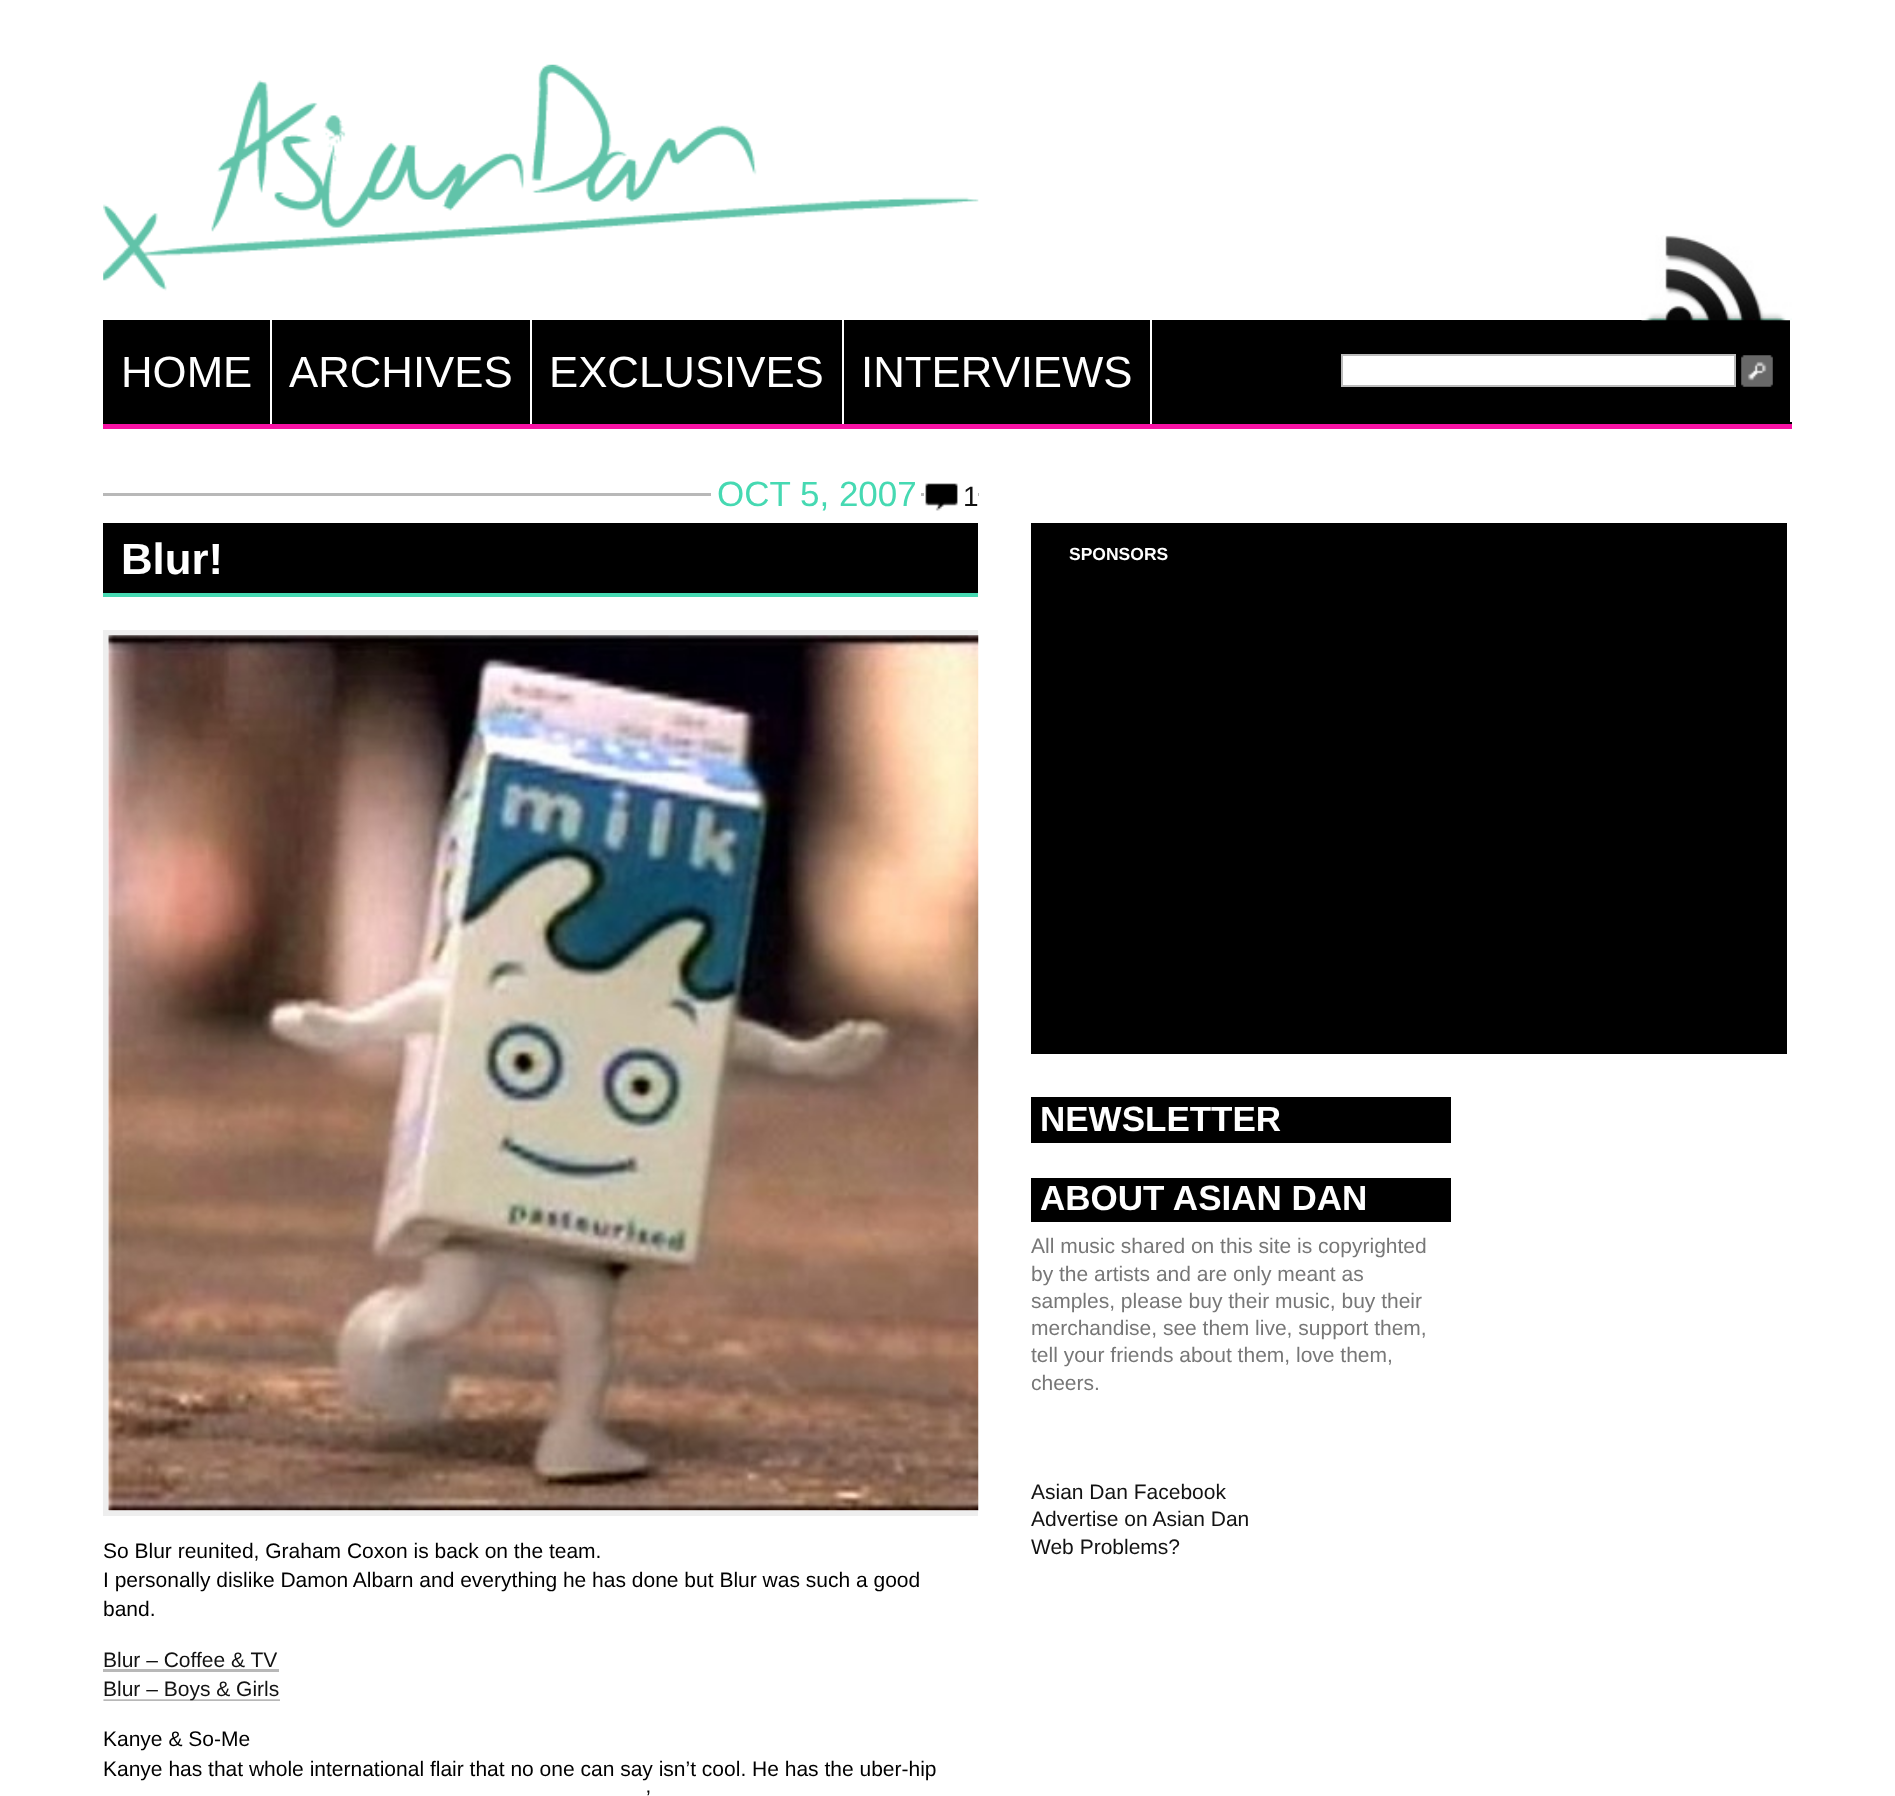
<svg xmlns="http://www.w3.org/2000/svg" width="1895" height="1796">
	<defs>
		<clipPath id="clip1"><rect x="103" y="609" width="875" height="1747" /></clipPath>
	</defs>
	<rect width="100%" height="100%" fill="#FFFFFF" />
	<image x="103" y="64" width="876" height="227" href="assets/img1.png" />
	<rect x="103" y="320" width="1689" height="104" fill="#000000" />
	<image x="1641" y="235" width="151" height="86" href="assets/img2.png" />
	<rect x="103" y="424" width="1689" height="5" fill="#F911A4" />
	<rect x="270" y="320" width="2" height="104" fill="#FFFFFF" />
	<text x="121" y="387" font-family="Liberation Sans" font-size="43.75" fill="#FFFFFF">HOME</text>
	<rect x="530" y="320" width="2" height="104" fill="#FFFFFF" />
	<text x="289" y="387" font-family="Liberation Sans" font-size="43.75" fill="#FFFFFF">ARCHIVES</text>
	<rect x="842" y="320" width="2" height="104" fill="#FFFFFF" />
	<text x="549" y="387" font-family="Liberation Sans" font-size="43.75" fill="#FFFFFF">EXCLUSIVES</text>
	<rect x="1150" y="320" width="2" height="104" fill="#FFFFFF" />
	<text x="861" y="387" font-family="Liberation Sans" font-size="43.75" fill="#FFFFFF">INTERVIEWS</text>
	<rect x="1790" y="320" width="2" height="102" fill="#FFFFFF" />
	<rect x="1342" y="355" width="393" height="31" fill="#FFFFFF" stroke="#BBBBBB" stroke-width="2" />
	<image x="1741" y="355" width="32" height="32" href="assets/img3.png" />
	<rect x="103" y="493" width="876" height="3" fill="#B8B8B8" />
	<rect x="711" y="493" width="210" height="3" fill="#FFFFFF" />
	<text x="717" y="506" font-family="Liberation Sans" font-size="35" fill="#46D9B2">OCT 5, 2007</text>
	<rect x="924" y="493" width="54" height="3" fill="#FFFFFF" />
	<image x="925" y="483" width="33" height="28" href="assets/img4.png" />
	<text x="963" y="506" font-family="Liberation Sans" font-size="28" fill="#121212">1</text>
	<rect x="103" y="523" width="875" height="70" fill="#000000" />
	<rect x="103" y="593" width="875" height="4" fill="#46D9B2" />
	<text x="121" y="574" font-family="Liberation Sans" font-size="43.75" font-weight="700" fill="#FFFFFF">Blur!</text>
	<g clip-path="url(#clip1)">
		<rect x="105.5" y="632.5" width="881" height="881" fill="none" stroke="#EEEEEE" stroke-width="5" />
	</g>
	<image x="108" y="635" width="871" height="876" href="assets/img5.png" />
	<g font-family="Liberation Sans" font-size="21" fill="#000000">
		<text x="103" y="1558">So Blur reunited, Graham Coxon is back on the team.</text>
		<text x="103" y="1587">I personally dislike Damon Albarn and everything he has done but Blur was such a good</text>
		<text x="103" y="1616">band.</text>
	</g>
	<text x="103" y="1667" font-family="Liberation Sans" font-size="21" fill="#121212">Blur – Coffee &amp; TV</text>
	<rect x="103" y="1669" width="176" height="3" fill="#B8B8B8" />
	<image x="103" y="1699" width="177" height="2" href="assets/img6.png" />
	<text x="103" y="1696" font-family="Liberation Sans" font-size="21" fill="#121212">Blur – Boys &amp; Girls</text>
	<g font-family="Liberation Sans" font-size="21" fill="#000000">
		<text x="103" y="1746">Kanye &amp; So-Me</text>
		<text x="103" y="1776">Kanye has that whole international flair that no one can say isn’t cool. He has the uber-hip</text>
		<text x="646" y="1805">’</text>
	</g>
	<rect x="1031" y="523" width="756" height="531" fill="#000000" />
	<text x="1069" y="560" font-family="Liberation Sans" font-size="17.5" font-weight="700" fill="#FFFFFF">SPONSORS</text>
	<rect x="1031" y="1097" width="420" height="46" fill="#000000" />
	<text x="1040" y="1131" font-family="Liberation Sans" font-size="35" font-weight="700" fill="#FFFFFF">NEWSLETTER</text>
	<rect x="1031" y="1178" width="420" height="44" fill="#000000" />
	<text x="1040" y="1210" font-family="Liberation Sans" font-size="35" font-weight="700" fill="#FFFFFF">ABOUT ASIAN DAN</text>
	<g font-family="Liberation Sans" font-size="21" fill="#777777">
		<text x="1031" y="1253">All music shared on this site is copyrighted</text>
		<text x="1031" y="1281">by the artists and are only meant as</text>
		<text x="1031" y="1308">samples, please buy their music, buy their</text>
		<text x="1031" y="1335">merchandise, see them live, support them,</text>
		<text x="1031" y="1362">tell your friends about them, love them,</text>
		<text x="1031" y="1390">cheers.</text>
	</g>
	<g font-family="Liberation Sans" font-size="21" fill="#121212">
		<text x="1031" y="1499">Asian Dan Facebook</text>
		<text x="1031" y="1526">Advertise on Asian Dan</text>
		<text x="1031" y="1554">Web Problems?</text>
	</g>
</svg>
